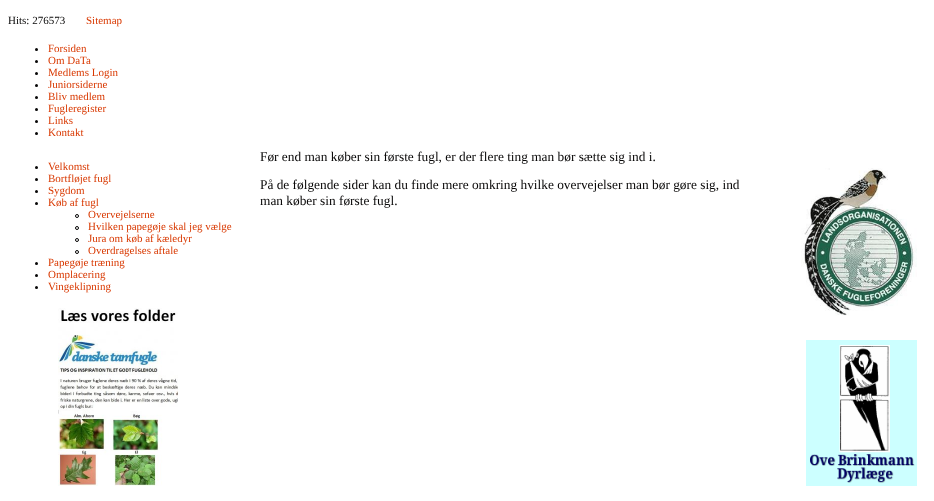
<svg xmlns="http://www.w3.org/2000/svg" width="934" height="501">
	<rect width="100%" height="100%" fill="#FFFFFF" />
	<text x="8" y="24" font-family="Liberation Serif" font-size="11" fill="#080707">Hits: 276573</text>
	<text x="86" y="24" font-family="Liberation Serif" font-size="11" fill="#D93902">Sitemap</text>
	<circle cx="36.5" cy="49.5" r="1.5" fill="#080707" />
	<text x="48" y="52" font-family="Liberation Serif" font-size="11" fill="#D93902">Forsiden</text>
	<circle cx="36.5" cy="61.5" r="1.5" fill="#080707" />
	<text x="48" y="64" font-family="Liberation Serif" font-size="11" fill="#D93902">Om DaTa</text>
	<circle cx="36.5" cy="73.5" r="1.5" fill="#080707" />
	<text x="48" y="76" font-family="Liberation Serif" font-size="11" fill="#D93902">Medlems Login</text>
	<circle cx="36.5" cy="85.5" r="1.5" fill="#080707" />
	<text x="48" y="88" font-family="Liberation Serif" font-size="11" fill="#D93902">Juniorsiderne</text>
	<circle cx="36.5" cy="97.5" r="1.5" fill="#080707" />
	<text x="48" y="100" font-family="Liberation Serif" font-size="11" fill="#D93902">Bliv medlem</text>
	<circle cx="36.5" cy="109.5" r="1.5" fill="#080707" />
	<text x="48" y="112" font-family="Liberation Serif" font-size="11" fill="#D93902">Fugleregister</text>
	<circle cx="36.5" cy="121.5" r="1.5" fill="#080707" />
	<text x="48" y="124" font-family="Liberation Serif" font-size="11" fill="#D93902">Links</text>
	<circle cx="36.5" cy="133.5" r="1.5" fill="#080707" />
	<text x="48" y="136" font-family="Liberation Serif" font-size="11" fill="#D93902">Kontakt</text>
	<circle cx="36.5" cy="167.5" r="1.5" fill="#080707" />
	<text x="48" y="170" font-family="Liberation Serif" font-size="11" fill="#D93902">Velkomst</text>
	<circle cx="36.5" cy="179.5" r="1.5" fill="#080707" />
	<text x="48" y="182" font-family="Liberation Serif" font-size="11" fill="#D93902">Bortfløjet fugl</text>
	<circle cx="36.5" cy="191.5" r="1.5" fill="#080707" />
	<text x="48" y="194" font-family="Liberation Serif" font-size="11" fill="#D93902">Sygdom</text>
	<circle cx="36.5" cy="203.5" r="1.5" fill="#080707" />
	<text x="48" y="206" font-family="Liberation Serif" font-size="11" fill="#D93902">Køb af fugl</text>
	<circle cx="77" cy="216" r="1.5" fill="none" stroke="#080707" />
	<text x="88" y="218" font-family="Liberation Serif" font-size="11" fill="#D93902">Overvejelserne</text>
	<circle cx="77" cy="228" r="1.5" fill="none" stroke="#080707" />
	<text x="88" y="230" font-family="Liberation Serif" font-size="11" fill="#D93902">Hvilken papegøje skal jeg vælge</text>
	<circle cx="77" cy="240" r="1.5" fill="none" stroke="#080707" />
	<text x="88" y="242" font-family="Liberation Serif" font-size="11" fill="#D93902">Jura om køb af kæledyr</text>
	<circle cx="77" cy="252" r="1.5" fill="none" stroke="#080707" />
	<text x="88" y="254" font-family="Liberation Serif" font-size="11" fill="#D93902">Overdragelses aftale</text>
	<circle cx="36.5" cy="263.5" r="1.5" fill="#080707" />
	<text x="48" y="266" font-family="Liberation Serif" font-size="11" fill="#D93902">Papegøje træning</text>
	<circle cx="36.5" cy="275.5" r="1.5" fill="#080707" />
	<text x="48" y="278" font-family="Liberation Serif" font-size="11" fill="#D93902">Omplacering</text>
	<circle cx="36.5" cy="287.5" r="1.5" fill="#080707" />
	<text x="48" y="290" font-family="Liberation Serif" font-size="11" fill="#D93902">Vingeklipning</text>
	<image x="58" y="308" width="120" height="178" href="assets/img1.png" />
	<g font-family="Liberation Serif" font-size="13.35" fill="#080707">
		<text x="260" y="161">Før end man køber sin første fugl, er der flere ting man bør sætte sig ind i.</text>
		<text x="260" y="189">På de følgende sider kan du finde mere omkring hvilke overvejelser man bør gøre sig, ind</text>
		<text x="260" y="205">man køber sin første fugl.</text>
	</g>
	<image x="801" y="168" width="116" height="148" href="assets/img2.png" />
	<image x="806" y="340" width="111" height="146" href="assets/img3.png" />
</svg>
